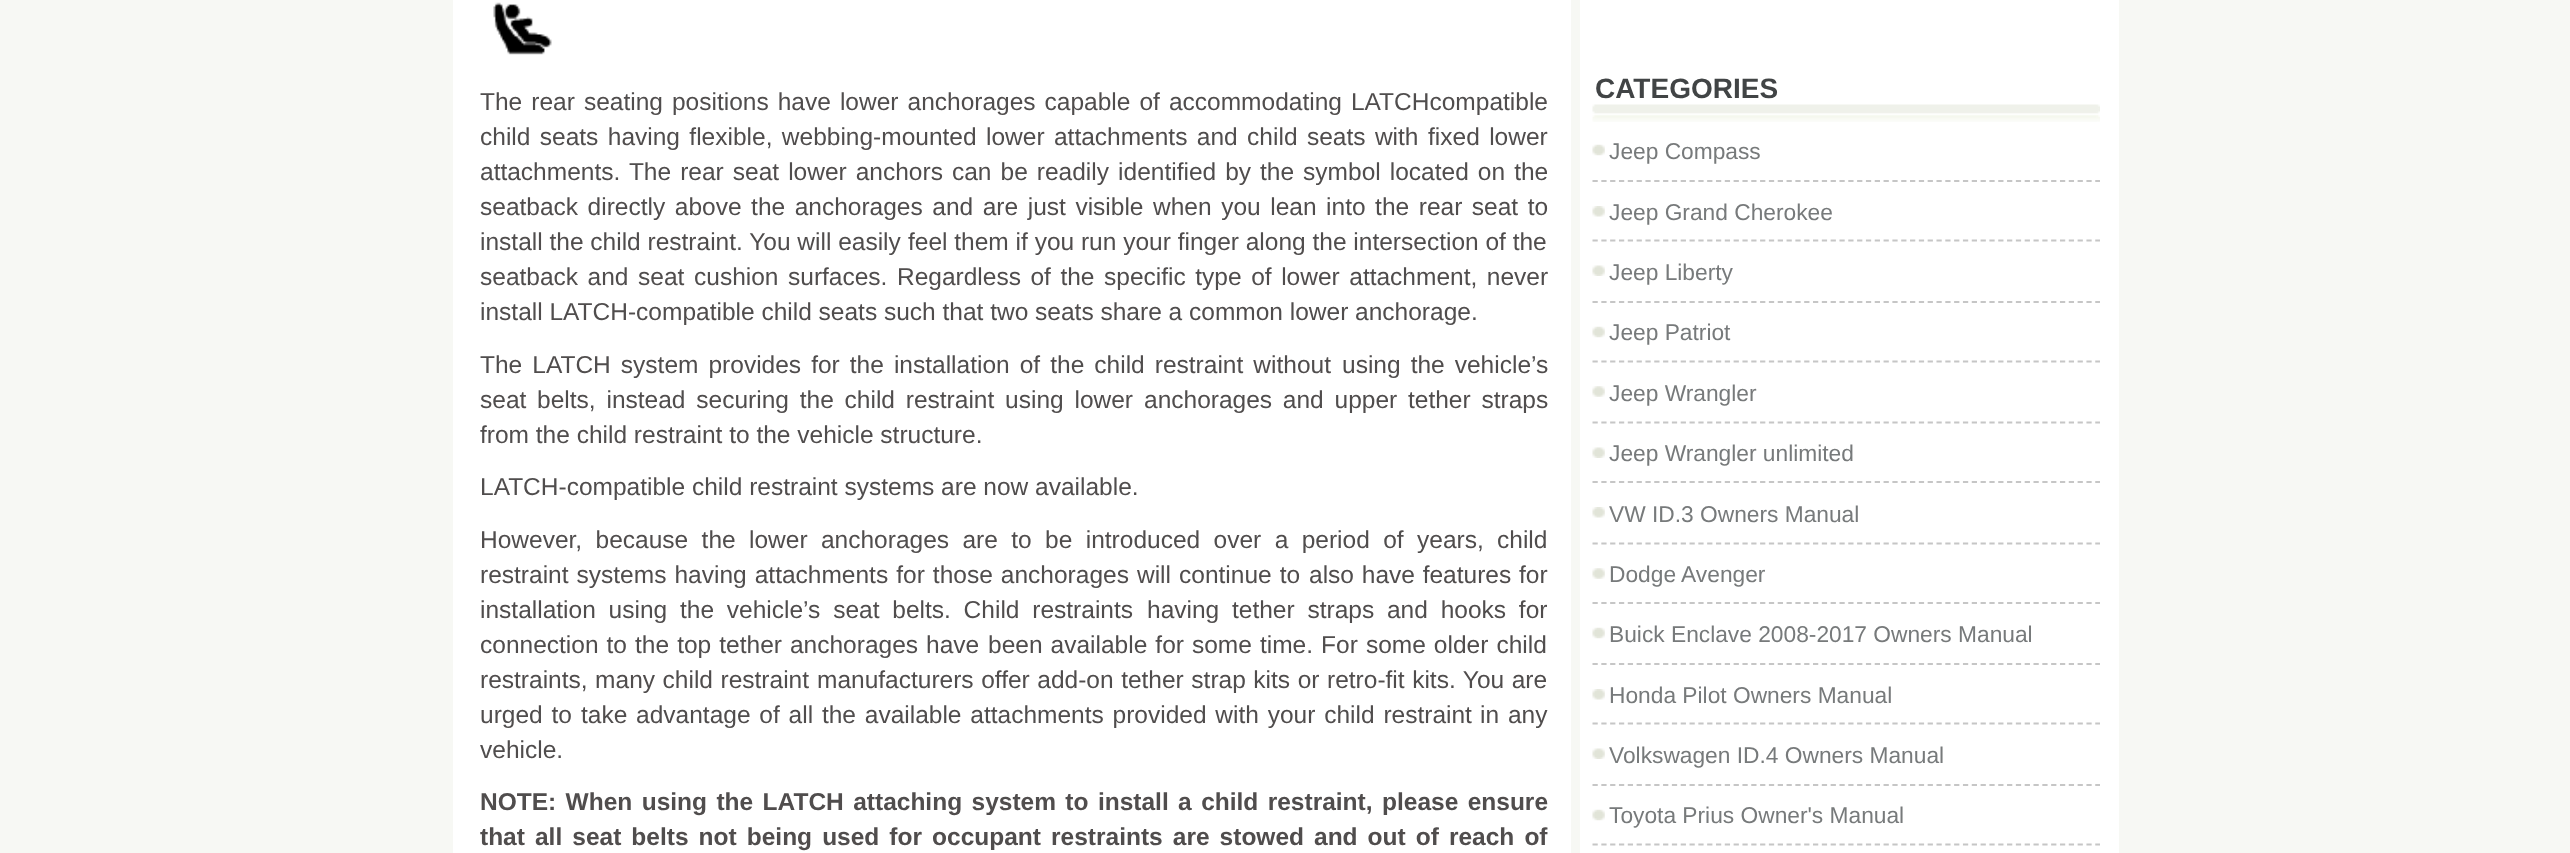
<svg xmlns="http://www.w3.org/2000/svg" width="2570" height="853">
	<rect width="100%" height="100%" fill="#F7F8F4" />
	<rect x="454" y="-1" width="1664" height="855" fill="none" stroke="#FFFFFF" stroke-width="2" />
	<rect x="455" y="0" width="1662" height="853" fill="#FFFFFF" />
	<rect x="1571" y="0" width="9" height="853" fill="#F7F8F4" />
	<image x="493" y="2" width="59" height="53" href="assets/img1.png" />
	<g font-family="Liberation Sans" font-size="24.5" fill="#504D4D">
		<text x="480" y="110" word-spacing="2.25">The rear seating positions have lower anchorages capable of accommodating LATCHcompatible</text>
		<text x="480" y="145" word-spacing="2.6">child seats having flexible, webbing-mounted lower attachments and child seats with</text>
		<text x="1428" y="145" word-spacing="2.6">fixed lower</text>
		<text x="480" y="180" word-spacing="2.25">attachments. The rear seat lower anchors can be readily identified by</text>
		<text x="1260" y="180" word-spacing="2.25">the symbol located on the</text>
		<text x="480" y="215" word-spacing="2.75">seatback directly above the anchorages and are just visible</text>
		<text x="1153" y="215" word-spacing="2.75">when you lean into the rear seat to</text>
		<text x="480" y="250">install the child restraint. You will easily</text>
		<text x="908" y="250">feel them if you run your finger along the intersection of the</text>
		<text x="480" y="285" word-spacing="2.75">seatback and seat</text>
		<text x="694" y="285" word-spacing="2.75">cushion surfaces. Regardless of the specific type of lower attachment, never</text>
		<text x="480" y="320">install LATCH-compatible child seats such that two seats share a common lower anchorage.</text>
		<text x="480" y="373" word-spacing="3.25">The LATCH system provides for the installation of the child restraint without</text>
		<text x="1342" y="373" word-spacing="3.25">using the vehicle’s</text>
		<text x="480" y="408" word-spacing="4">seat belts, instead securing the child restraint using lower</text>
		<text x="1144" y="408" word-spacing="4">anchorages and upper tether straps</text>
		<text x="480" y="443">from the child restraint to the vehicle structure.</text>
		<text x="480" y="495">LATCH-compatible child restraint systems are now available.</text>
		<text x="480" y="548" word-spacing="6.6">However, because the lower anchorages are to be introduced over a period of years,</text>
		<text x="1497" y="548">child</text>
		<text x="480" y="583" word-spacing="1.25">restraint systems having attachments for those anchorages will continue to</text>
		<text x="1309" y="583" word-spacing="1">also have features for</text>
		<text x="480" y="618" word-spacing="6">installation using the vehicle’s seat belts. Child restraints</text>
		<text x="1147" y="618" word-spacing="6">having tether straps and hooks for</text>
		<text x="480" y="653" word-spacing="1.25">connection to the top tether anchorages have</text>
		<text x="988" y="653" word-spacing="1.25">been available for some time. For some older child</text>
		<text x="480" y="688" word-spacing="0.75">restraints, many child restraint</text>
		<text x="817" y="688" word-spacing="0.75">manufacturers offer add-on tether strap kits or retro-fit kits. You are</text>
		<text x="480" y="723" word-spacing="2">urged to</text>
		<text x="581" y="723" word-spacing="2">take advantage of all the available attachments provided with your child restraint</text>
		<text x="1480" y="723" word-spacing="2">in any</text>
		<text x="480" y="758">vehicle.</text>
	</g>
	<g font-family="Liberation Sans" font-size="24.5" font-weight="700" fill="#504D4D">
		<text x="480" y="810" word-spacing="2.6">NOTE: When using the LATCH attaching system to install a child restraint,</text>
		<text x="1382" y="810" word-spacing="2.6">please ensure</text>
		<text x="480" y="845" word-spacing="3.25">that all seat belts not being used for occupant restraints are stowed</text>
		<text x="1314" y="845" word-spacing="3.25">and out of reach of</text>
	</g>
	<image x="1592" y="104" width="508" height="18" href="assets/img2.png" />
	<text x="1595" y="98" font-family="Liberation Sans" font-size="28" font-weight="700" fill="#414445">CATEGORIES</text>
	<image x="1592" y="144" width="13" height="12" href="assets/img3.png" />
	<path d="M1592.5 181H2100" fill="none" stroke="#C6C6C6" stroke-width="1.8" stroke-dasharray="5.25 3.57" />
	<text x="1609" y="159" font-family="Liberation Sans" font-size="22.75" fill="#777A7B">Jeep Compass</text>
	<image x="1592" y="206" width="13" height="11" href="assets/img4.png" />
	<path d="M1592.5 240.5H2100" fill="none" stroke="#C6C6C6" stroke-width="1.8" stroke-dasharray="5.25 3.57" />
	<text x="1609" y="220" font-family="Liberation Sans" font-size="22.75" fill="#777A7B">Jeep Grand Cherokee</text>
	<image x="1592" y="265" width="13" height="11" href="assets/img5.png" />
	<path d="M1592.5 302H2100" fill="none" stroke="#C6C6C6" stroke-width="1.8" stroke-dasharray="5.25 3.57" />
	<text x="1609" y="280" font-family="Liberation Sans" font-size="22.75" fill="#777A7B">Jeep Liberty</text>
	<image x="1592" y="326" width="13" height="12" href="assets/img3.png" />
	<path d="M1592.5 361.5H2100" fill="none" stroke="#C6C6C6" stroke-width="1.8" stroke-dasharray="5.25 3.57" />
	<text x="1609" y="340" font-family="Liberation Sans" font-size="22.75" fill="#777A7B">Jeep Patriot</text>
	<image x="1592" y="386" width="13" height="11" href="assets/img6.png" />
	<path d="M1592.5 422.5H2100" fill="none" stroke="#C6C6C6" stroke-width="1.8" stroke-dasharray="5.25 3.57" />
	<text x="1609" y="401" font-family="Liberation Sans" font-size="22.75" fill="#777A7B">Jeep Wrangler</text>
	<image x="1592" y="447" width="13" height="11" href="assets/img5.png" />
	<path d="M1592.5 482H2100" fill="none" stroke="#C6C6C6" stroke-width="1.8" stroke-dasharray="5.25 3.57" />
	<text x="1609" y="461" font-family="Liberation Sans" font-size="22.75" fill="#777A7B">Jeep Wrangler unlimited</text>
	<image x="1592" y="507" width="13" height="11" href="assets/img4.png" />
	<path d="M1592.5 543.5H2100" fill="none" stroke="#C6C6C6" stroke-width="1.8" stroke-dasharray="5.25 3.57" />
	<text x="1609" y="522" font-family="Liberation Sans" font-size="22.75" fill="#777A7B">VW ID.3 Owners Manual</text>
	<image x="1592" y="568" width="13" height="11" href="assets/img6.png" />
	<path d="M1592.5 603H2100" fill="none" stroke="#C6C6C6" stroke-width="1.8" stroke-dasharray="5.25 3.57" />
	<text x="1609" y="582" font-family="Liberation Sans" font-size="22.75" fill="#777A7B">Dodge Avenger</text>
	<image x="1592" y="627" width="13" height="12" href="assets/img3.png" />
	<path d="M1592.5 664H2100" fill="none" stroke="#C6C6C6" stroke-width="1.8" stroke-dasharray="5.25 3.57" />
	<text x="1609" y="642" font-family="Liberation Sans" font-size="22.75" fill="#777A7B">Buick Enclave 2008-2017 Owners Manual</text>
	<image x="1592" y="689" width="13" height="11" href="assets/img4.png" />
	<path d="M1592.5 723.5H2100" fill="none" stroke="#C6C6C6" stroke-width="1.8" stroke-dasharray="5.25 3.57" />
	<text x="1609" y="703" font-family="Liberation Sans" font-size="22.75" fill="#777A7B">Honda Pilot Owners Manual</text>
	<image x="1592" y="748" width="13" height="11" href="assets/img5.png" />
	<path d="M1592.5 785H2100" fill="none" stroke="#C6C6C6" stroke-width="1.8" stroke-dasharray="5.25 3.57" />
	<text x="1609" y="763" font-family="Liberation Sans" font-size="22.75" fill="#777A7B">Volkswagen ID.4 Owners Manual</text>
	<image x="1592" y="809" width="13" height="12" href="assets/img3.png" />
	<path d="M1592.5 844.5H2100" fill="none" stroke="#C6C6C6" stroke-width="1.8" stroke-dasharray="5.25 3.57" />
	<text x="1609" y="823" font-family="Liberation Sans" font-size="22.75" fill="#777A7B">Toyota Prius Owner's Manual</text>
</svg>
